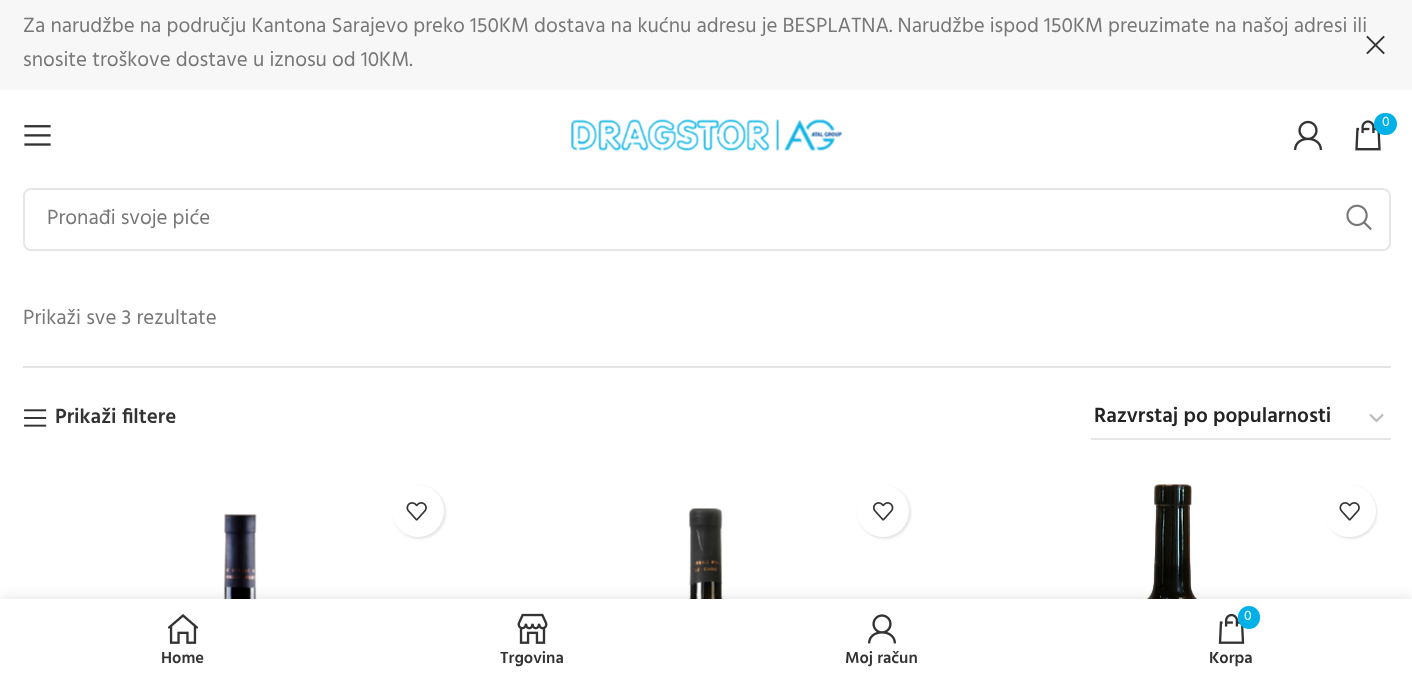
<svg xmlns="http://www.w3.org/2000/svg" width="1412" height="681">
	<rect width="100%" height="100%" fill="#FFFFFF" />
	<rect x="0" y="0" width="1412" height="90" fill="#F7F7F7" />
	<g font-family="Hind" font-size="21" fill="#777777">
		<text x="23" y="32">Za narudžbe na području Kantona Sarajevo preko 150KM dostava na kućnu adresu je BESPLATNA. Narudžbe ispod 150KM preuzimate na našoj adresi ili</text>
		<text x="23" y="66">snosite troškove dostave u iznosu od 10KM.</text>
	</g>
	<image x="1366" y="35" width="19" height="20" href="assets/img1.png" />
	<image x="24" y="125" width="27" height="21" href="assets/img2.png" />
	<image x="571" y="119" width="271" height="32" href="assets/img3.png" />
	<image x="1294" y="120" width="28" height="30" href="assets/img4.png" />
	<image x="1355" y="120" width="26" height="31" href="assets/img5.png" />
	<rect x="1374" y="113" width="23" height="22" rx="11" fill="#00B1E8" />
	<text x="1382" y="126" font-family="Hind" font-size="14" fill="#FFFFFF">0</text>
	<rect x="24" y="189" width="1366" height="61" rx="7" fill="none" stroke="#E6E6E6" stroke-width="2" />
	<text x="47" y="224" font-family="Hind" font-size="21" fill="#777777">Pronađi svoje piće</text>
	<image x="1346" y="204" width="26" height="27" href="assets/img6.png" />
	<rect x="23" y="366" width="1368" height="2" fill="#E4E4E4" />
	<text x="23" y="324" font-family="Hind" font-size="21" fill="#777777">Prikaži sve 3 rezultate</text>
	<image x="24" y="409" width="23" height="18" href="assets/img7.png" />
	<text x="55" y="423" font-family="Hind" font-size="21" font-weight="600" fill="#333333">Prikaži filtere</text>
	<path d="M1370 414.5L1376.5 421L1383 414.5" fill="none" stroke="#BBBBBB" stroke-width="2.2" />
	<rect x="1091" y="438" width="300" height="2" fill="#E6E6E6" />
	<text x="1094" y="422" font-family="Hind" font-size="21" font-weight="600" fill="#242424">Razvrstaj po popularnosti</text>
	<image x="200" y="513" width="81" height="86" href="assets/img8.png" />
	<rect x="393" y="486" width="53" height="53" rx="26.5" fill="#000000" fill-opacity="0.1" filter="blur(1px)" />
	<circle cx="418" cy="511" r="26" fill="#FFFFFF" />
	<image x="406" y="502" width="21" height="19" href="assets/img9.png" />
	<image x="664" y="507" width="85" height="92" href="assets/img10.png" />
	<rect x="858" y="486" width="53" height="53" rx="26.5" fill="#000000" fill-opacity="0.1" filter="blur(1px)" />
	<circle cx="883" cy="511" r="26" fill="#FFFFFF" />
	<image x="873" y="502" width="21" height="19" href="assets/img11.png" />
	<image x="1123" y="483" width="97" height="116" href="assets/img12.png" />
	<rect x="1325" y="486" width="52" height="53" rx="26" fill="#000000" fill-opacity="0.1" filter="blur(1px)" />
	<rect x="1323" y="485" width="53" height="52" rx="26" fill="#FFFFFF" />
	<image x="1339" y="502" width="21" height="19" href="assets/img9.png" />
	<rect x="0" y="599" width="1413" height="82" fill="#000000" fill-opacity="0.12" filter="blur(7px)" />
	<rect x="0" y="599" width="1412" height="82" fill="#FFFFFF" />
	<image x="168" y="614" width="30" height="30" href="assets/img13.png" />
	<text x="161" y="663" font-family="Hind" font-size="16.5" font-weight="600" fill="#333333">Home</text>
	<image x="517" y="613" width="31" height="31" href="assets/img14.png" />
	<text x="500" y="663" font-family="Hind" font-size="16.5" font-weight="600" fill="#333333">Trgovina</text>
	<image x="868" y="614" width="28" height="30" href="assets/img15.png" />
	<text x="845" y="663" font-family="Hind" font-size="16.5" font-weight="600" fill="#333333">Moj račun</text>
	<image x="1218" y="613" width="27" height="31" href="assets/img16.png" />
	<rect x="1238" y="606" width="22" height="23" rx="11" fill="#00B1E8" />
	<text x="1244" y="620" font-family="Hind" font-size="14" fill="#FFFFFF">0</text>
	<text x="1209" y="663" font-family="Hind" font-size="16.5" font-weight="600" fill="#333333">Korpa</text>
</svg>
